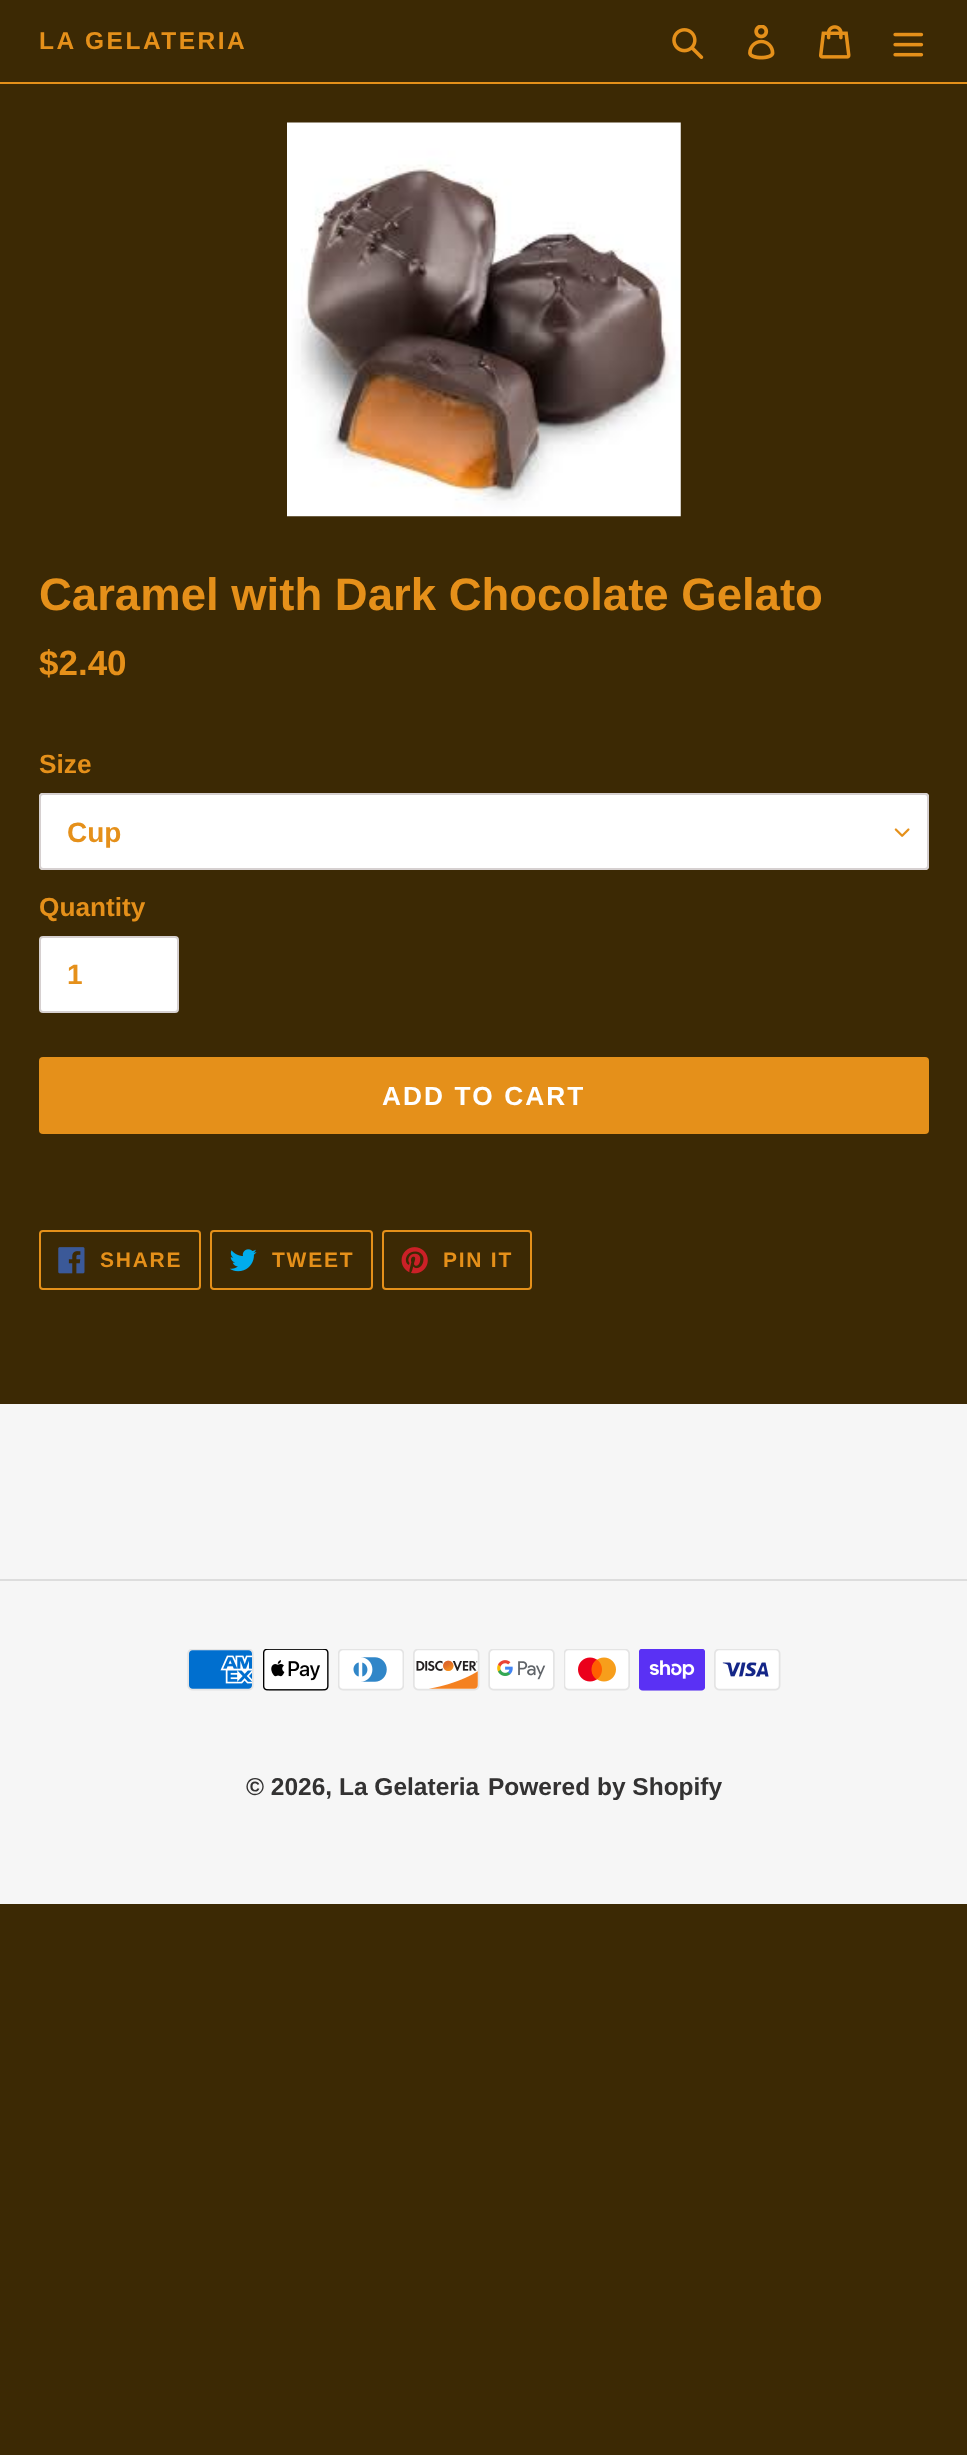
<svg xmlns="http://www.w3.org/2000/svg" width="967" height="2455">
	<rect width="100%" height="100%" fill="#3C2904" />
	<rect x="0" y="82" width="967" height="2" fill="#E5901A" />
	<text x="39" y="49" font-family="Liberation Sans" font-size="24.5" font-weight="700" letter-spacing="2.5" fill="#E5901A">LA GELATERIA</text>
	<image x="672" y="28" width="32" height="31" href="assets/img1.png" />
	<image x="748" y="25" width="27" height="35" href="assets/img2.png" />
	<image x="819" y="25" width="32" height="34" href="assets/img3.png" />
	<image x="893" y="32" width="31" height="25" href="assets/img4.png" />
	<image x="287" y="122" width="394" height="395" href="assets/img5.png" />
	<text x="39" y="610" font-family="Liberation Sans" font-size="45.5" font-weight="700" fill="#E5901A">Caramel with Dark Chocolate Gelato</text>
	<text x="39" y="675" font-family="Liberation Sans" font-size="35" font-weight="700" fill="#E5901A">$2.40</text>
	<text x="39" y="773" font-family="Liberation Sans" font-size="26.25" font-weight="700" fill="#E5901A">Size</text>
	<rect x="39" y="793" width="890" height="77" rx="4" fill="#FFFFFF" />
	<image x="894" y="828" width="16" height="9" href="assets/img6.png" />
	<rect x="40" y="794" width="888" height="75" rx="3" fill="none" stroke="#D6D0D0" stroke-width="2" />
	<text x="67" y="842" font-family="Liberation Sans" font-size="28" font-weight="700" fill="#E5901A">Cup</text>
	<text x="39" y="916" font-family="Liberation Sans" font-size="26.25" font-weight="700" fill="#E5901A">Quantity</text>
	<rect x="40" y="937" width="138" height="75" rx="3" fill="#FFFFFF" stroke="#D6D0D0" stroke-width="2" />
	<text x="67" y="984" font-family="Liberation Sans" font-size="28" font-weight="700" fill="#E5901A">1</text>
	<rect x="39" y="1057" width="890" height="77" rx="4" fill="#E5901A" />
	<text x="382" y="1105" font-family="Liberation Sans" font-size="26.25" font-weight="700" letter-spacing="2.1" fill="#FFFFFF">ADD TO CART</text>
	<rect x="40" y="1231" width="160" height="58" rx="3" fill="none" stroke="#E5901A" stroke-width="2" />
	<image x="58" y="1247" width="27" height="27" href="assets/img7.png" />
	<text x="100" y="1267" font-family="Liberation Sans" font-size="21" font-weight="700" letter-spacing="1.75" fill="#E5901A">SHARE</text>
	<rect x="211" y="1231" width="161" height="58" rx="3" fill="none" stroke="#E5901A" stroke-width="2" />
	<image x="229" y="1249" width="28" height="23" href="assets/img8.png" />
	<text x="272" y="1267" font-family="Liberation Sans" font-size="21" font-weight="700" letter-spacing="1.75" fill="#E5901A">TWEET</text>
	<rect x="383" y="1231" width="148" height="58" rx="3" fill="none" stroke="#E5901A" stroke-width="2" />
	<image x="401" y="1247" width="27" height="27" href="assets/img9.png" />
	<text x="443" y="1267" font-family="Liberation Sans" font-size="21" font-weight="700" letter-spacing="1.75" fill="#E5901A">PIN IT</text>
	<rect x="0" y="1404" width="967" height="500" fill="#F6F6F6" />
	<rect x="0" y="1579" width="967" height="2" fill="#DDDDDD" />
	<image x="187" y="1649" width="67" height="42" href="assets/img10.png" />
	<image x="263" y="1649" width="66" height="42" href="assets/img11.png" />
	<image x="338" y="1649" width="66" height="42" href="assets/img12.png" />
	<image x="413" y="1649" width="67" height="42" href="assets/img13.png" />
	<image x="488" y="1649" width="67" height="42" href="assets/img14.png" />
	<image x="564" y="1649" width="66" height="42" href="assets/img15.png" />
	<image x="639" y="1649" width="66" height="42" href="assets/img16.png" />
	<image x="714" y="1649" width="67" height="42" href="assets/img17.png" />
	<g font-family="Liberation Sans" font-size="24.5" font-weight="700" fill="#333232">
		<text x="246" y="1795">© 2026, La Gelateria</text>
		<text x="488" y="1795">Powered by Shopify</text>
	</g>
</svg>
